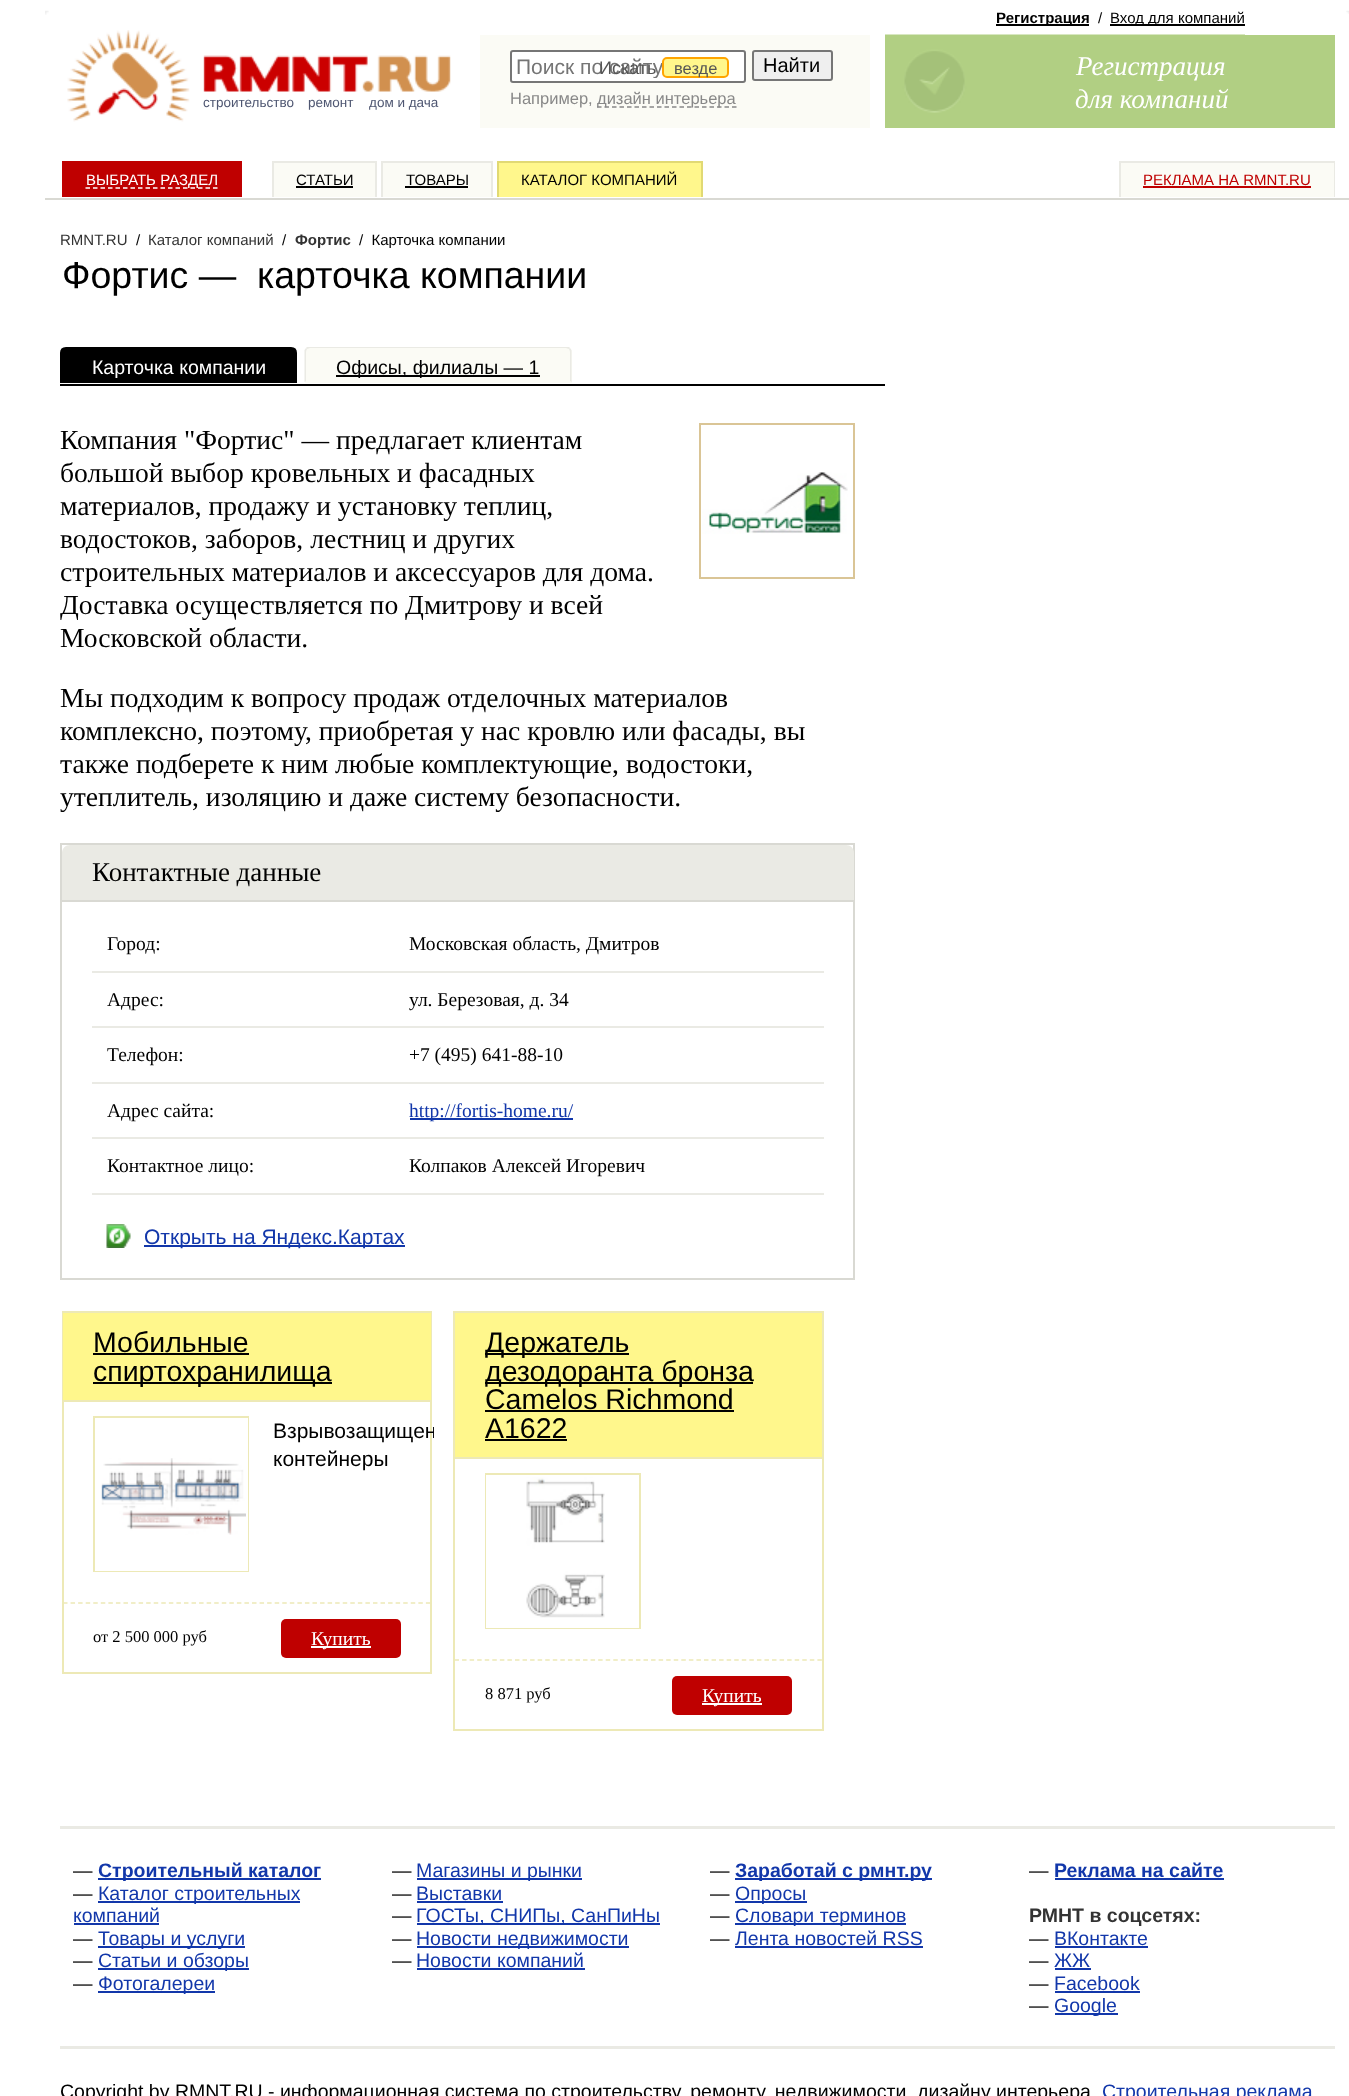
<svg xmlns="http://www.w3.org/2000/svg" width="1349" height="2096">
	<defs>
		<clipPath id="clip1"><rect x="516" y="54" width="152" height="24" /></clipPath>
		<clipPath id="clip2"><rect x="60" y="347" width="795" height="36" /></clipPath>
		<clipPath id="clip3"><rect x="60" y="1310" width="374" height="423" /></clipPath>
	</defs>
	<rect width="100%" height="100%" fill="#FFFFFF" />
	<image x="45" y="10" width="4" height="5" href="assets/img1.png" />
	<image x="67" y="30" width="384" height="92" href="assets/img2.png" />
	<g font-family="Liberation Sans" font-size="13.5" fill="#4F5772">
		<text x="203" y="107">строительство</text>
		<text x="308" y="107">ремонт</text>
		<text x="369" y="107">дом и дача</text>
	</g>
	<rect x="480" y="35" width="390" height="93" fill="#FBFBF5" />
	<rect x="511" y="51" width="234" height="31" rx="2" fill="#FFFFFF" stroke="#767676" stroke-width="2" />
	<g clip-path="url(#clip1)">
		<text x="516" y="74" font-family="Liberation Sans" font-size="21" fill="#757575">Поиск по сайту</text>
	</g>
	<text x="599" y="74" font-family="Liberation Sans" font-size="18" fill="#555555">Искать</text>
	<rect x="663" y="58" width="65" height="19" rx="4" fill="#FFF78C" stroke="#FFA500" stroke-width="2" />
	<text x="674" y="74" font-family="Liberation Sans" font-size="16.5" fill="#555555">везде</text>
	<rect x="753" y="51" width="79" height="29" rx="2" fill="#EFEFEF" stroke="#767676" stroke-width="2" />
	<text x="763" y="72" font-family="Liberation Sans" font-size="20" fill="#000000">Найти</text>
	<text x="510" y="104" font-family="Liberation Sans" font-size="16.5" fill="#888888">Например,</text>
	<path d="M597 107H736.5" fill="none" stroke="#888888" stroke-width="1.5" stroke-dasharray="4.5 3" />
	<text x="597" y="104" font-family="Liberation Sans" font-size="16.5" fill="#888888">дизайн интерьера</text>
	<rect x="996" y="24" width="93" height="2" fill="#000000" />
	<text x="996" y="23" font-family="Liberation Sans" font-size="15" font-weight="700" fill="#000000">Регистрация</text>
	<text x="1098" y="23" font-family="Liberation Sans" font-size="15" fill="#000000">/</text>
	<rect x="1110" y="24" width="135" height="2" fill="#000000" />
	<text x="1110" y="23" font-family="Liberation Sans" font-size="15" fill="#000000">Вход для компаний</text>
	<rect x="885" y="35" width="450" height="93" fill="#B1CF83" />
	<image x="885" y="34" width="360" height="79" href="assets/img3.png" />
	<g font-family="Liberation Serif" font-size="27" font-style="italic" fill="#FFFFFF">
		<text x="1076" y="75">Регистрация</text>
		<text x="1075" y="108">для компаний</text>
	</g>
	<rect x="45" y="198" width="1304" height="2" fill="#D9D9D3" />
	<rect x="62" y="161" width="180" height="36" fill="#BF0000" />
	<path d="M85.5 188H217.5" fill="none" stroke="#FFFFFF" stroke-width="1.5" stroke-dasharray="4.5 3" />
	<text x="86" y="185" font-family="Liberation Sans" font-size="15" fill="#FFFFFF">ВЫБРАТЬ РАЗДЕЛ</text>
	<rect x="274" y="163" width="101" height="34" fill="#FBFBF5" />
	<rect x="272" y="161" width="105" height="2" fill="#EAEAE4" />
	<rect x="375" y="161" width="2" height="36" fill="#EAEAE4" />
	<rect x="272" y="161" width="2" height="36" fill="#EAEAE4" />
	<text x="296" y="185" font-family="Liberation Sans" font-size="15" fill="#000000">СТАТЬИ</text>
	<rect x="296" y="186" width="57" height="2" fill="#000000" />
	<rect x="383" y="163" width="108" height="34" fill="#FBFBF5" />
	<rect x="381" y="161" width="111" height="2" fill="#EAEAE4" />
	<rect x="491" y="161" width="2" height="36" fill="#EAEAE4" />
	<rect x="381" y="161" width="2" height="36" fill="#EAEAE4" />
	<text x="406" y="185" font-family="Liberation Sans" font-size="15" fill="#000000">ТОВАРЫ</text>
	<rect x="405" y="186" width="63" height="2" fill="#000000" />
	<rect x="499" y="163" width="202" height="34" fill="#FFF78C" />
	<rect x="497" y="161" width="205" height="2" fill="#E1D974" />
	<rect x="701" y="161" width="2" height="36" fill="#E1D974" />
	<rect x="497" y="161" width="2" height="36" fill="#E1D974" />
	<text x="521" y="185" font-family="Liberation Sans" font-size="15" fill="#000000">КАТАЛОГ КОМПАНИЙ</text>
	<rect x="1121" y="163" width="213" height="34" fill="#FBFBF5" />
	<rect x="1119" y="161" width="216" height="2" fill="#EAEAE4" />
	<rect x="1334" y="161" width="1" height="36" fill="#EAEAE4" />
	<rect x="1119" y="161" width="2" height="36" fill="#EAEAE4" />
	<text x="1143" y="185" font-family="Liberation Sans" font-size="15" fill="#BF0000">РЕКЛАМА НА RMNT.RU</text>
	<rect x="1143" y="186" width="168" height="2" fill="#BF0000" />
	<text x="60" y="245" font-family="Liberation Sans" font-size="15" fill="#333333">RMNT.RU</text>
	<text x="136" y="245" font-family="Liberation Sans" font-size="15" fill="#000000">/</text>
	<text x="148" y="245" font-family="Liberation Sans" font-size="15" fill="#333333">Каталог компаний</text>
	<text x="282" y="245" font-family="Liberation Sans" font-size="15" fill="#000000">/</text>
	<text x="295" y="245" font-family="Liberation Sans" font-size="15" font-weight="700" fill="#333333">Фортис</text>
	<text x="359" y="245" font-family="Liberation Sans" font-size="15" fill="#000000" xml:space="preserve">/  Карточка компании</text>
	<text x="62" y="288" font-family="Liberation Sans" font-size="37.5" fill="#000000" xml:space="preserve">Фортис —  карточка компании</text>
	<rect x="60" y="384" width="825" height="2" fill="#000000" />
	<path d="M66 348H291C294 348 296 350 296 353V382H61V353C61 350 63 348 66 348Z" fill="#000000" stroke="#000000" stroke-width="2" />
	<text x="92" y="374" font-family="Liberation Sans" font-size="19.5" fill="#FFFFFF">Карточка компании</text>
	<path d="M311 347H566C569.5 347 572 349.5 572 353V383H305V353C305 349.5 307.5 347 311 347Z" fill="#FBFBF5" />
	<g clip-path="url(#clip2)">
		<path d="M310 348L307 349L306 348L308 346H568L570 348L569 349L566 348Z" fill="#EAEAE4" />
	</g>
	<path d="M571.5 382H571L570 381V352C570 351 569.5 350 569 349L570 348L571.5 350Z" fill="#EAEAE4" />
	<path d="M571 382H305L306 381H570Z" fill="#FBFBF5" />
	<path d="M304.5 350L306 348L307 349C306.5 350 306 351 306 352V381L305 382H304.5Z" fill="#EAEAE4" />
	<rect x="336" y="375" width="204" height="2" fill="#000000" />
	<text x="336" y="374" font-family="Liberation Sans" font-size="19.5" fill="#000000">Офисы, филиалы — 1</text>
	<g font-family="Liberation Serif" font-size="27.6" fill="#000000">
		<text x="60" y="449">Компания "Фортис" — предлагает клиентам</text>
		<text x="60" y="482">большой выбор кровельных и фасадных</text>
		<text x="60" y="515">материалов, продажу и установку теплиц,</text>
		<text x="60" y="548">водостоков, заборов, лестниц и других</text>
		<text x="60" y="581">строительных материалов и аксессуаров для дома.</text>
		<text x="60" y="614">Доставка осуществляется по Дмитрову и всей</text>
		<text x="60" y="647">Московской области.</text>
	</g>
	<rect x="700" y="424" width="154" height="154" fill="none" stroke="#DAC596" stroke-width="2" />
	<image x="702" y="472" width="146" height="62" href="assets/img4.png" />
	<g font-family="Liberation Serif" font-size="27.6" fill="#000000">
		<text x="60" y="707">Мы подходим к вопросу продаж отделочных материалов</text>
		<text x="60" y="740">комплексно, поэтому, приобретая у нас кровлю или фасады, вы</text>
		<text x="60" y="773">также подберете к ним любые комплектующие, водостоки,</text>
		<text x="60" y="806">утеплитель, изоляцию и даже систему безопасности.</text>
	</g>
	<rect x="61" y="844" width="793" height="435" fill="none" stroke="#D9D9D3" stroke-width="2" />
	<path d="M70 845H846C850.5 845 854 848.5 854 853V902H62V853C62 848.5 65.5 845 70 845Z" fill="#EAEAE4" />
	<rect x="62" y="900" width="792" height="2" fill="#D9D9D3" />
	<text x="92" y="881" font-family="Liberation Serif" font-size="27" fill="#000000">Контактные данные</text>
	<rect x="92" y="971" width="732" height="2" fill="#EAEAE4" />
	<g font-family="Liberation Serif" font-size="19.5" fill="#000000">
		<text x="107" y="950">Город:</text>
		<text x="409" y="950">Московская область, Дмитров</text>
	</g>
	<rect x="92" y="1026" width="732" height="2" fill="#EAEAE4" />
	<g font-family="Liberation Serif" font-size="19.5" fill="#000000">
		<text x="107" y="1006">Адрес:</text>
		<text x="409" y="1006">ул. Березовая, д. 34</text>
	</g>
	<rect x="92" y="1082" width="732" height="2" fill="#EAEAE4" />
	<g font-family="Liberation Serif" font-size="19.5" fill="#000000">
		<text x="107" y="1061">Телефон:</text>
		<text x="409" y="1061">+7 (495) 641-88-10</text>
	</g>
	<rect x="92" y="1137" width="732" height="2" fill="#EAEAE4" />
	<text x="107" y="1117" font-family="Liberation Serif" font-size="19.5" fill="#000000">Адрес сайта:</text>
	<rect x="410" y="1118" width="163" height="2" fill="#1237AA" />
	<text x="409" y="1117" font-family="Liberation Serif" font-size="19.5" fill="#1237AA">http://fortis-home.ru/</text>
	<rect x="92" y="1193" width="732" height="2" fill="#EAEAE4" />
	<g font-family="Liberation Serif" font-size="19.5" fill="#000000">
		<text x="107" y="1172">Контактное лицо:</text>
		<text x="409" y="1172">Колпаков Алексей Игоревич</text>
	</g>
	<image x="106" y="1224" width="25" height="24" href="assets/img5.png" />
	<rect x="144" y="1245" width="261" height="2" fill="#1237AA" />
	<text x="144" y="1244" font-family="Liberation Sans" font-size="21" fill="#1237AA">Открыть на Яндекс.Картах</text>
	<rect x="63" y="1312" width="368" height="361" fill="none" stroke="#EDE9B6" stroke-width="2" />
	<rect x="63" y="1313" width="368" height="87" fill="#FFF78C" />
	<rect x="63" y="1400" width="368" height="2" fill="#EDE9B6" />
	<text x="93" y="1352" font-family="Liberation Sans" font-size="28.5" fill="#000000">Мобильные</text>
	<rect x="93" y="1353" width="156" height="2" fill="#000000" />
	<rect x="93" y="1382" width="239" height="2" fill="#000000" />
	<text x="93" y="1381" font-family="Liberation Sans" font-size="28.5" fill="#000000">спиртохранилища</text>
	<image x="101" y="1458" width="145" height="77" href="assets/img6.png" />
	<rect x="94" y="1417" width="154" height="154" fill="none" stroke="#EDE9B6" stroke-width="2" />
	<rect x="96" y="1419" width="151" height="151" fill="none" stroke="#FFFFFF" stroke-width="2" />
	<g clip-path="url(#clip3)">
		<text x="273" y="1438" font-family="Liberation Sans" font-size="21" fill="#000000">Взрывозащищен</text>
	</g>
	<text x="273" y="1466" font-family="Liberation Sans" font-size="21" fill="#000000">контейнеры</text>
	<path d="M63 1603H430.5" fill="none" stroke="#EDE9B6" stroke-width="1.5" stroke-dasharray="4.5 3.06" />
	<text x="93" y="1642" font-family="Liberation Serif" font-size="16.5" fill="#000000">от 2 500 000 руб</text>
	<rect x="281" y="1619" width="120" height="39" rx="5" fill="#BF0000" />
	<rect x="311" y="1646" width="60" height="2" fill="#FFFFFF" />
	<text x="311" y="1645" font-family="Liberation Serif" font-size="19.5" fill="#FFFFFF">Купить</text>
	<rect x="454" y="1312" width="369" height="418" fill="none" stroke="#EDE9B6" stroke-width="2" />
	<rect x="455" y="1313" width="367" height="144" fill="#FFF78C" />
	<rect x="455" y="1457" width="367" height="2" fill="#EDE9B6" />
	<rect x="485" y="1353" width="144" height="2" fill="#000000" />
	<text x="485" y="1352" font-family="Liberation Sans" font-size="28.5" fill="#000000">Держатель</text>
	<rect x="485" y="1382" width="268" height="2" fill="#000000" />
	<g font-family="Liberation Sans" font-size="28.5" fill="#000000">
		<text x="485" y="1381">дезодоранта бронза</text>
		<text x="485" y="1409">Camelos Richmond</text>
	</g>
	<rect x="485" y="1410" width="249" height="2" fill="#000000" />
	<text x="485" y="1438" font-family="Liberation Sans" font-size="28.5" fill="#000000">A1622</text>
	<rect x="485" y="1439" width="82" height="2" fill="#000000" />
	<image x="526" y="1477" width="79" height="141" href="assets/img7.png" />
	<rect x="486" y="1474" width="154" height="154" fill="none" stroke="#EDE9B6" stroke-width="2" />
	<rect x="487" y="1476" width="151" height="151" fill="none" stroke="#FFFFFF" stroke-width="2" />
	<path d="M454.5 1660H822" fill="none" stroke="#EDE9B6" stroke-width="1.5" stroke-dasharray="4.5 3.06" />
	<text x="485" y="1699" font-family="Liberation Serif" font-size="16.5" fill="#000000">8 871 руб</text>
	<rect x="672" y="1676" width="120" height="39" rx="5" fill="#BF0000" />
	<rect x="702" y="1703" width="60" height="2" fill="#FFFFFF" />
	<text x="702" y="1702" font-family="Liberation Serif" font-size="19.5" fill="#FFFFFF">Купить</text>
	<rect x="60" y="1826" width="1275" height="3" fill="#EAEAE4" />
	<rect x="60" y="2046" width="1275" height="3" fill="#EAEAE4" />
	<text x="73" y="1877" font-family="Liberation Sans" font-size="19.5" fill="#000000">—</text>
	<rect x="98" y="1878" width="223" height="2" fill="#1237AA" />
	<text x="98" y="1877" font-family="Liberation Sans" font-size="19.5" font-weight="700" fill="#1237AA">Строительный каталог</text>
	<text x="73" y="1900" font-family="Liberation Sans" font-size="19.5" fill="#000000">—</text>
	<rect x="98" y="1901" width="202" height="2" fill="#1237AA" />
	<g font-family="Liberation Sans" font-size="19.5" fill="#1237AA">
		<text x="98" y="1900">Каталог строительных</text>
		<text x="73" y="1922">компаний</text>
	</g>
	<rect x="74" y="1923" width="85" height="2" fill="#1237AA" />
	<text x="73" y="1945" font-family="Liberation Sans" font-size="19.5" fill="#000000">—</text>
	<rect x="98" y="1946" width="147" height="2" fill="#1237AA" />
	<text x="98" y="1945" font-family="Liberation Sans" font-size="19.5" fill="#1237AA">Товары и услуги</text>
	<text x="73" y="1967" font-family="Liberation Sans" font-size="19.5" fill="#000000">—</text>
	<rect x="98" y="1968" width="151" height="2" fill="#1237AA" />
	<text x="98" y="1967" font-family="Liberation Sans" font-size="19.5" fill="#1237AA">Статьи и обзоры</text>
	<text x="73" y="1990" font-family="Liberation Sans" font-size="19.5" fill="#000000">—</text>
	<rect x="98" y="1991" width="117" height="2" fill="#1237AA" />
	<text x="98" y="1990" font-family="Liberation Sans" font-size="19.5" fill="#1237AA">Фотогалереи</text>
	<text x="392" y="1877" font-family="Liberation Sans" font-size="19.5" fill="#000000">—</text>
	<rect x="417" y="1878" width="165" height="2" fill="#1237AA" />
	<text x="416" y="1877" font-family="Liberation Sans" font-size="19.5" fill="#1237AA">Магазины и рынки</text>
	<text x="392" y="1900" font-family="Liberation Sans" font-size="19.5" fill="#000000">—</text>
	<text x="416" y="1900" font-family="Liberation Sans" font-size="19.5" fill="#1237AA">Выставки</text>
	<rect x="417" y="1901" width="86" height="2" fill="#1237AA" />
	<text x="392" y="1922" font-family="Liberation Sans" font-size="19.5" fill="#000000">—</text>
	<rect x="417" y="1923" width="243" height="2" fill="#1237AA" />
	<text x="416" y="1922" font-family="Liberation Sans" font-size="19.5" fill="#1237AA">ГОСТы, СНИПы, СанПиНы</text>
	<text x="392" y="1945" font-family="Liberation Sans" font-size="19.5" fill="#000000">—</text>
	<rect x="417" y="1946" width="212" height="2" fill="#1237AA" />
	<text x="416" y="1945" font-family="Liberation Sans" font-size="19.5" fill="#1237AA">Новости недвижимости</text>
	<text x="392" y="1967" font-family="Liberation Sans" font-size="19.5" fill="#000000">—</text>
	<text x="416" y="1967" font-family="Liberation Sans" font-size="19.5" fill="#1237AA">Новости компаний</text>
	<rect x="417" y="1968" width="168" height="2" fill="#1237AA" />
	<text x="710" y="1877" font-family="Liberation Sans" font-size="19.5" fill="#000000">—</text>
	<rect x="735" y="1878" width="197" height="2" fill="#1237AA" />
	<text x="735" y="1877" font-family="Liberation Sans" font-size="19.5" font-weight="700" fill="#1237AA">Заработай с рмнт.ру</text>
	<text x="710" y="1900" font-family="Liberation Sans" font-size="19.5" fill="#000000">—</text>
	<rect x="735" y="1901" width="72" height="2" fill="#1237AA" />
	<text x="735" y="1900" font-family="Liberation Sans" font-size="19.5" fill="#1237AA">Опросы</text>
	<text x="710" y="1922" font-family="Liberation Sans" font-size="19.5" fill="#000000">—</text>
	<rect x="735" y="1923" width="171" height="2" fill="#1237AA" />
	<text x="735" y="1922" font-family="Liberation Sans" font-size="19.5" fill="#1237AA">Словари терминов</text>
	<text x="710" y="1945" font-family="Liberation Sans" font-size="19.5" fill="#000000">—</text>
	<text x="735" y="1945" font-family="Liberation Sans" font-size="19.5" fill="#1237AA">Лента новостей RSS</text>
	<rect x="735" y="1946" width="188" height="2" fill="#1237AA" />
	<text x="1029" y="1877" font-family="Liberation Sans" font-size="19.5" fill="#000000">—</text>
	<text x="1054" y="1877" font-family="Liberation Sans" font-size="19.5" font-weight="700" fill="#1237AA">Реклама на сайте</text>
	<rect x="1055" y="1878" width="169" height="2" fill="#1237AA" />
	<text x="1029" y="1922" font-family="Liberation Sans" font-size="19.5" font-weight="700" fill="#333333">РМНТ в соцсетях:</text>
	<text x="1029" y="1945" font-family="Liberation Sans" font-size="19.5" fill="#000000">—</text>
	<text x="1054" y="1945" font-family="Liberation Sans" font-size="19.5" fill="#1237AA">ВКонтакте</text>
	<rect x="1055" y="1946" width="93" height="2" fill="#1237AA" />
	<text x="1029" y="1967" font-family="Liberation Sans" font-size="19.5" fill="#000000">—</text>
	<text x="1054" y="1967" font-family="Liberation Sans" font-size="19.5" fill="#1237AA">ЖЖ</text>
	<rect x="1055" y="1968" width="36" height="2" fill="#1237AA" />
	<text x="1029" y="1990" font-family="Liberation Sans" font-size="19.5" fill="#000000">—</text>
	<text x="1054" y="1990" font-family="Liberation Sans" font-size="19.5" fill="#1237AA">Facebook</text>
	<rect x="1055" y="1991" width="85" height="2" fill="#1237AA" />
	<text x="1029" y="2012" font-family="Liberation Sans" font-size="19.5" fill="#000000">—</text>
	<rect x="1055" y="2013" width="63" height="2" fill="#1237AA" />
	<text x="1054" y="2012" font-family="Liberation Sans" font-size="19.5" fill="#1237AA">Google</text>
	<text x="60" y="2098" font-family="Liberation Sans" font-size="19.5" fill="#000000">Copyright by RMNT.RU - информационная система по строительству, ремонту, недвижимости, дизайну интерьера</text>
	<text x="1102" y="2098" font-family="Liberation Sans" font-size="19.5" fill="#1237AA">Строительная реклама</text>
	<image x="1346" y="10" width="3" height="4" href="assets/img8.png" />
</svg>
